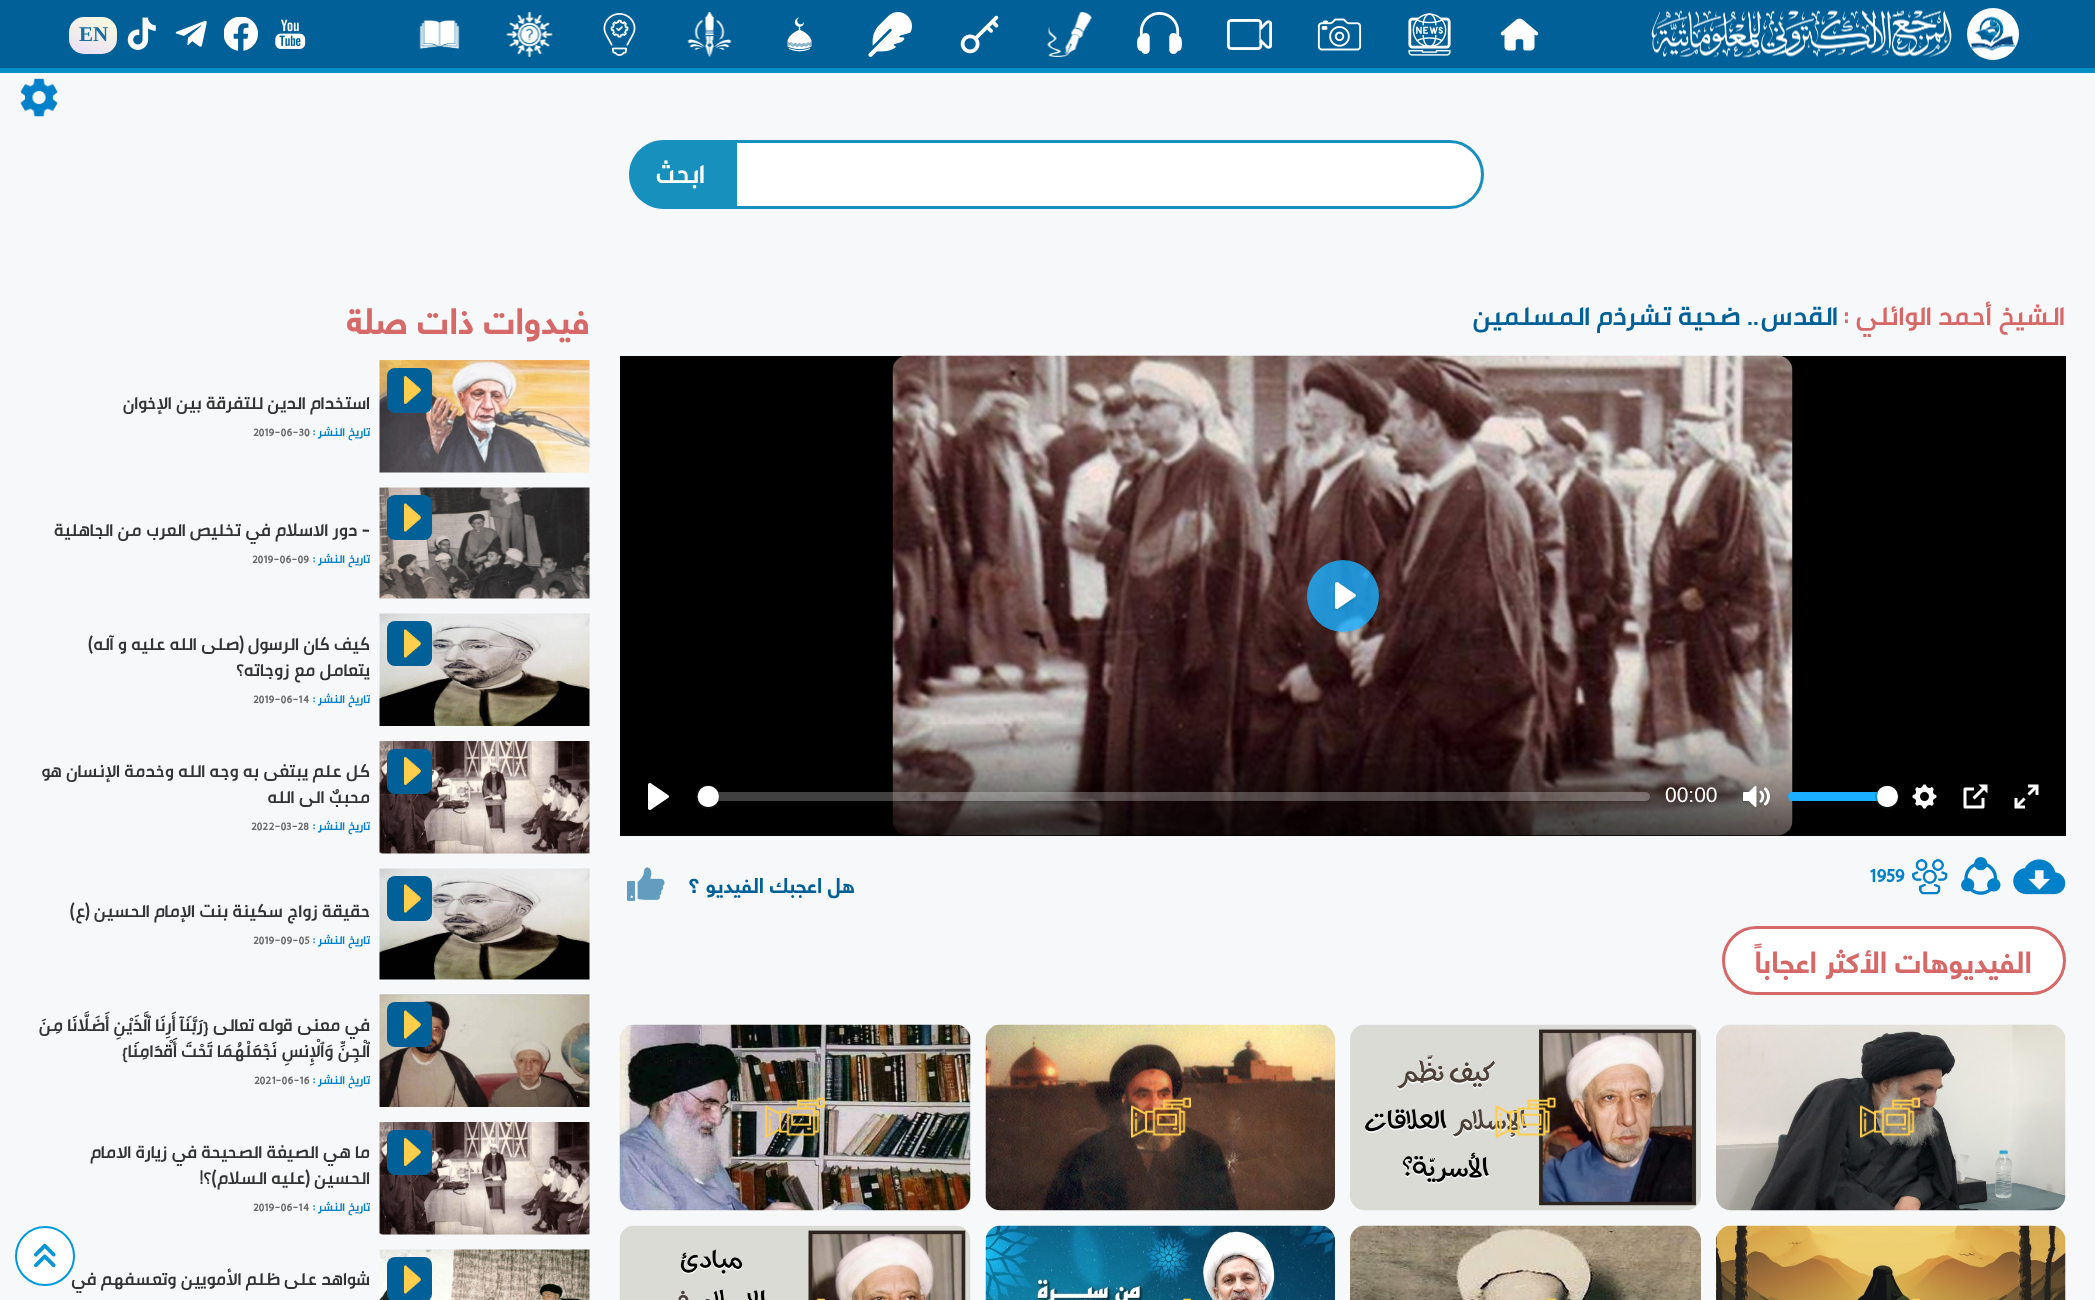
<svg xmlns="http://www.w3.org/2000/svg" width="2095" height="1300">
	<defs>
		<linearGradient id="g1" gradientUnits="userSpaceOnUse" x1="84" y1="60" x2="102" y2="11"><stop offset="0" stop-color="#E9DEFA" /><stop offset="1" stop-color="#FBFCDB" /></linearGradient>
		<clipPath id="clip1"><path d="M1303 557H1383V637H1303ZM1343 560C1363 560 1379 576 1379 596C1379 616 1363 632 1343 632C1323 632 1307 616 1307 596C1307 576 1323 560 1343 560Z" clip-rule="evenodd" /></clipPath>
		<linearGradient id="g2" gradientUnits="userSpaceOnUse" x1="1343" y1="720" x2="1343" y2="836"><stop offset="0" stop-color="#000000" stop-opacity="0" /><stop offset="1" stop-color="#000000" stop-opacity="0.7" /></linearGradient>
		<clipPath id="clip2"><path d="M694 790H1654V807H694ZM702.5 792H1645.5C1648 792 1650 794 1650 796.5C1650 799 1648 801 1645.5 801H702.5C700 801 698 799 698 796.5C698 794 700 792 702.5 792Z" clip-rule="evenodd" /></clipPath>
	</defs>
	<rect width="100%" height="100%" fill="#F6F8F9" />
	<rect x="0" y="0" width="2095" height="68" fill="#006097" />
	<rect x="0" y="68" width="2095" height="5" fill="#008EC5" />
	<circle cx="1993" cy="34" r="26" fill="#FFFFFF" />
	<image x="1970" y="16" width="46" height="35" href="assets/img1.png" />
	<image x="1651" y="10" width="301" height="48" href="assets/img2.png" />
	<image x="1500" y="18" width="39" height="33" href="assets/img3.png" />
	<image x="1408" y="13" width="43" height="43" href="assets/img4.png" />
	<image x="1317" y="18" width="45" height="33" href="assets/img5.png" />
	<image x="1227" y="19" width="45" height="31" href="assets/img6.png" />
	<image x="1137" y="12" width="45" height="42" href="assets/img7.png" />
	<image x="1047" y="12" width="45" height="45" href="assets/img8.png" />
	<image x="960" y="15" width="39" height="39" href="assets/img9.png" />
	<image x="868" y="12" width="44" height="45" href="assets/img10.png" />
	<image x="787" y="17" width="25" height="35" href="assets/img11.png" />
	<image x="687" y="12" width="45" height="45" href="assets/img12.png" />
	<image x="603" y="13" width="33" height="43" href="assets/img13.png" />
	<image x="506" y="12" width="47" height="45" href="assets/img14.png" />
	<image x="419" y="20" width="41" height="29" href="assets/img15.png" />
	<image x="275" y="19" width="31" height="30" href="assets/img16.png" />
	<image x="224" y="17" width="34" height="34" href="assets/img17.png" />
	<image x="175" y="20" width="32" height="27" href="assets/img18.png" />
	<image x="127" y="17" width="29" height="33" href="assets/img19.png" />
	<rect x="69" y="17" width="48" height="37" rx="15" fill="url(#g1)" />
	<text x="79" y="41" font-family="Liberation Serif" font-size="21" font-weight="700" fill="#186E9F">EN</text>
	<image x="20" y="78" width="38" height="39" href="assets/img20.png" />
	<path d="M735.5 141.5H1449.5C1467.5 141.5 1482.5 156.5 1482.5 174.5C1482.5 192.5 1467.5 207.5 1449.5 207.5H735.5Z" fill="#FFFFFF" stroke="#1890BD" stroke-width="3" />
	<path d="M663.5 140H734V209H663.5C644.5 209 629 193.5 629 174.5C629 155.5 644.5 140 663.5 140Z" fill="#1890BD" />
	<text x="705" y="183" font-family="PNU" font-size="27" font-weight="700" direction="rtl" fill="#FFFFFF">ابحث</text>
	<text x="2065" y="325" font-family="PNU" font-size="27" font-weight="700" direction="rtl" fill="#D76868">الشيخ أحمد الوائلي :</text>
	<text x="1838" y="325" font-family="PNU" font-size="27" font-weight="700" direction="rtl" fill="#006097">القدس.. ضحية تشرذم المسلمين</text>
	<rect x="620" y="356" width="1446" height="480" fill="#000000" />
	<image x="892" y="355" width="901" height="481" href="assets/img21.png" />
	<g clip-path="url(#clip1)">
		<rect x="1307" y="561" width="72" height="72" rx="36" fill="#000000" fill-opacity="0.15" filter="blur(1px)" />
	</g>
	<circle cx="1343" cy="596" r="36" fill="#1AAFFF" fill-opacity="0.8" />
	<image x="1333" y="582" width="24" height="30" href="assets/img22.png" />
	<rect x="892" y="724" width="901" height="112" fill="url(#g2)" />
	<image x="2014" y="784" width="25" height="25" href="assets/img23.png" />
	<image x="1963" y="784" width="25" height="25" href="assets/img24.png" />
	<image x="1876" y="784" width="61" height="25" href="assets/img25.png" />
	<rect x="1788" y="792" width="110" height="9" rx="4.5" fill="#1AAFFF" />
	<circle cx="1887" cy="797" r="11" fill="none" stroke="#2F343D" stroke-opacity="0.2" stroke-width="2" />
	<rect x="1877" y="788" width="21" height="21" rx="10.5" fill="#000000" fill-opacity="0.15" filter="blur(1px)" />
	<circle cx="1887.5" cy="796.5" r="10.5" fill="#FFFFFF" />
	<image x="1742" y="786" width="29" height="23" href="assets/img26.png" />
	<text x="1665" y="802" font-family="Liberation Sans" font-size="21" fill="#FFFFFF">00:00</text>
	<image x="648" y="783" width="70" height="27" href="assets/img27.png" />
	<g clip-path="url(#clip2)">
		<rect x="698" y="794" width="952" height="9" rx="4.5" fill="#000000" fill-opacity="0.15" filter="blur(1px)" />
	</g>
	<rect x="698" y="792" width="952" height="9" rx="4.5" fill="#FFFFFF" fill-opacity="0.25" />
	<circle cx="708" cy="797" r="11" fill="none" stroke="#2F343D" stroke-opacity="0.2" stroke-width="2" />
	<rect x="698" y="788" width="21" height="21" rx="10.5" fill="#000000" fill-opacity="0.15" filter="blur(1px)" />
	<circle cx="708.5" cy="796.5" r="10.5" fill="#FFFFFF" />
	<image x="2013" y="859" width="53" height="36" href="assets/img28.png" />
	<image x="1961" y="857" width="40" height="38" href="assets/img29.png" />
	<image x="1912" y="859" width="36" height="36" href="assets/img30.png" />
	<text x="1869" y="882" font-family="PNU" font-size="21" font-weight="700" fill="#0280C9">1959</text>
	<text x="855" y="893" font-family="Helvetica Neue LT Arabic" font-size="21" font-weight="700" direction="rtl" fill="#006097">هل اعجبك الفيديو ؟</text>
	<image x="627" y="867" width="38" height="35" href="assets/img31.png" />
	<rect x="1723.5" y="927.5" width="341" height="66" rx="33" fill="#FFFFFF" stroke="#D76868" stroke-width="3" />
	<text x="2032" y="973" font-family="Helvetica Neue LT Arabic" font-size="30" font-weight="700" direction="rtl" fill="#D76868">الفيديوهات الأكثر اعجاباً</text>
	<image x="1716" y="1024" width="350" height="187" href="assets/img32.png" />
	<image x="1860" y="1097" width="60" height="42" href="assets/img33.png" />
	<image x="1350" y="1024" width="351" height="187" href="assets/img34.png" />
	<image x="1495" y="1097" width="61" height="42" href="assets/img35.png" />
	<image x="985" y="1024" width="350" height="187" href="assets/img36.png" />
	<image x="1131" y="1097" width="60" height="42" href="assets/img37.png" />
	<image x="619" y="1024" width="352" height="187" href="assets/img38.png" />
	<image x="765" y="1097" width="60" height="42" href="assets/img39.png" />
	<image x="1716" y="1225" width="350" height="75" href="assets/img40.png" />
	<image x="1911" y="1298" width="9" height="2" href="assets/img41.png" />
	<image x="1350" y="1225" width="351" height="75" href="assets/img42.png" />
	<image x="1547" y="1298" width="9" height="2" href="assets/img43.png" />
	<image x="985" y="1225" width="350" height="75" href="assets/img44.png" />
	<image x="1182" y="1298" width="9" height="2" href="assets/img45.png" />
	<image x="619" y="1225" width="352" height="75" href="assets/img46.png" />
	<image x="816" y="1298" width="9" height="2" href="assets/img47.png" />
	<text x="590" y="334" font-family="Helvetica Neue LT Arabic" font-size="36" font-weight="700" direction="rtl" fill="#D76868">فيدوات ذات صلة</text>
	<image x="379" y="360" width="211" height="113" href="assets/img48.png" />
	<rect x="387" y="368" width="45" height="45" rx="8" fill="#006097" />
	<image x="404" y="376" width="17" height="28" href="assets/img49.png" />
	<text x="370" y="409" font-family="PNU" font-size="18" font-weight="700" direction="rtl" fill="#333333">استخدام الدين للتفرقة بين الإخوان</text>
	<text x="370" y="436" font-family="PNU" font-size="12" font-weight="700" direction="rtl" fill="#0280C9">تاريخ النشر :</text>
	<text x="253" y="436" font-family="PNU" font-size="12" font-weight="700" fill="#6C6C6C">2019-06-30</text>
	<image x="379" y="487" width="211" height="112" href="assets/img50.png" />
	<rect x="387" y="495" width="45" height="45" rx="8" fill="#006097" />
	<image x="404" y="503" width="17" height="29" href="assets/img51.png" />
	<text x="370" y="536" font-family="PNU" font-size="18" font-weight="700" direction="rtl" fill="#333333">- دور الاسلام في تخليص العرب من الجاهلية</text>
	<text x="370" y="563" font-family="PNU" font-size="12" font-weight="700" direction="rtl" fill="#0280C9">تاريخ النشر :</text>
	<text x="252" y="563" font-family="PNU" font-size="12" font-weight="700" fill="#6C6C6C">2019-06-09</text>
	<image x="379" y="613" width="211" height="113" href="assets/img52.png" />
	<rect x="387" y="621" width="45" height="45" rx="8" fill="#006097" />
	<image x="404" y="629" width="17" height="29" href="assets/img51.png" />
	<g font-family="PNU" font-size="18" font-weight="700" direction="rtl" fill="#333333">
		<text x="370" y="650">كيف كان الرسول (صلى الله عليه و آله)</text>
		<text x="370" y="676">يتعامل مع زوجاته؟</text>
	</g>
	<text x="370" y="703" font-family="PNU" font-size="12" font-weight="700" direction="rtl" fill="#0280C9">تاريخ النشر :</text>
	<text x="253" y="703" font-family="PNU" font-size="12" font-weight="700" fill="#6C6C6C">2019-06-14</text>
	<image x="379" y="741" width="211" height="113" href="assets/img53.png" />
	<rect x="387" y="749" width="45" height="45" rx="8" fill="#006097" />
	<image x="404" y="757" width="17" height="28" href="assets/img49.png" />
	<g font-family="PNU" font-size="18" font-weight="700" direction="rtl" fill="#333333">
		<text x="370" y="777">كل علم يبتغى به وجه الله وخدمة الإنسان هو</text>
		<text x="370" y="803">محببٌ الى الله</text>
	</g>
	<text x="370" y="830" font-family="PNU" font-size="12" font-weight="700" direction="rtl" fill="#0280C9">تاريخ النشر :</text>
	<text x="251" y="830" font-family="PNU" font-size="12" font-weight="700" fill="#6C6C6C">2022-03-28</text>
	<image x="379" y="868" width="211" height="112" href="assets/img54.png" />
	<rect x="387" y="876" width="45" height="45" rx="8" fill="#006097" />
	<image x="404" y="884" width="17" height="29" href="assets/img51.png" />
	<text x="370" y="917" font-family="PNU" font-size="18" font-weight="700" direction="rtl" fill="#333333">حقيقة زواج سكينة بنت الإمام الحسين (ع)</text>
	<text x="370" y="944" font-family="PNU" font-size="12" font-weight="700" direction="rtl" fill="#0280C9">تاريخ النشر :</text>
	<text x="253" y="944" font-family="PNU" font-size="12" font-weight="700" fill="#6C6C6C">2019-09-05</text>
	<image x="379" y="994" width="211" height="113" href="assets/img55.png" />
	<rect x="387" y="1002" width="45" height="45" rx="8" fill="#006097" />
	<image x="404" y="1010" width="17" height="29" href="assets/img51.png" />
	<g font-family="PNU" font-size="18" font-weight="700" direction="rtl" fill="#333333">
		<text x="370" y="1031">في معنى قوله تعالى {رَبَّنَآ أَرِنَا ٱلَّذَيْنِ أَضَلَّانَا مِنَ</text>
		<text x="370" y="1057">ٱلْجِنِّ وَٱلْإِنسِ نَجْعَلْهُمَا تَحْتَ أَقْدَامِنَا}</text>
	</g>
	<text x="370" y="1084" font-family="PNU" font-size="12" font-weight="700" direction="rtl" fill="#0280C9">تاريخ النشر :</text>
	<text x="254" y="1084" font-family="PNU" font-size="12" font-weight="700" fill="#6C6C6C">2021-06-16</text>
	<image x="379" y="1122" width="211" height="113" href="assets/img53.png" />
	<rect x="387" y="1130" width="45" height="45" rx="8" fill="#006097" />
	<image x="404" y="1138" width="17" height="28" href="assets/img49.png" />
	<g font-family="PNU" font-size="18" font-weight="700" direction="rtl" fill="#333333">
		<text x="370" y="1158">ما هي الصيغة الصحيحة في زيارة الامام</text>
		<text x="370" y="1184">الحسين (عليه السلام)؟!</text>
	</g>
	<text x="370" y="1211" font-family="PNU" font-size="12" font-weight="700" direction="rtl" fill="#0280C9">تاريخ النشر :</text>
	<text x="253" y="1211" font-family="PNU" font-size="12" font-weight="700" fill="#6C6C6C">2019-06-14</text>
	<image x="379" y="1249" width="211" height="51" href="assets/img56.png" />
	<rect x="387" y="1257" width="45" height="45" rx="8" fill="#006097" />
	<image x="404" y="1265" width="17" height="29" href="assets/img51.png" />
	<text x="370" y="1285" font-family="PNU" font-size="18" font-weight="700" direction="rtl" fill="#333333">شواهد على ظلم الأمويين وتعسفهم في</text>
	<circle cx="45" cy="1256" r="29" fill="#FFFFFF" stroke="#0099DD" stroke-width="2" />
	<image x="34" y="1243" width="22" height="25" href="assets/img57.png" />
</svg>
